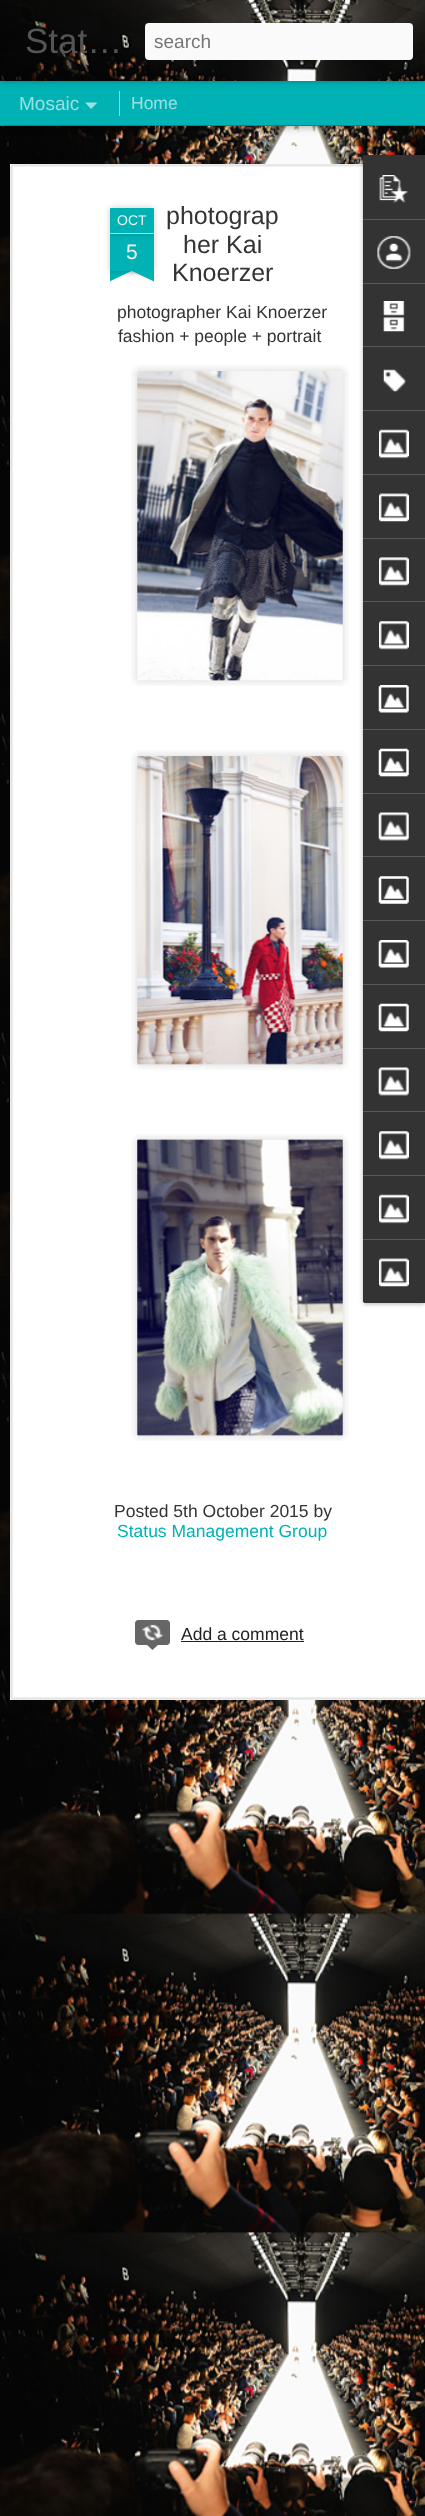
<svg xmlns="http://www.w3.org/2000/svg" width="425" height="2516">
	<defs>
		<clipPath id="clip1"><rect x="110" y="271" width="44" height="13" /></clipPath>
		<clipPath id="clip2"><rect x="110" y="271" width="44" height="13" /></clipPath>
	</defs>
	<rect width="100%" height="100%" fill="#00B2B4" />
	<image x="0" y="126" width="425" height="2390" href="assets/img2.png" />
	<rect x="0" y="81" width="425" height="44" fill="#000000" fill-opacity="0.5" filter="blur(5px)" />
	<rect x="0" y="81" width="425" height="44" fill="#00B2B4" />
	<rect x="0" y="0" width="425" height="81" fill="#000000" fill-opacity="0.3" filter="blur(3px)" />
	<image x="0" y="0" width="425" height="81" href="assets/img1.png" />
	<text x="25" y="53" font-family="Liberation Sans" font-size="35" fill="#555555">Stat…</text>
	<rect x="145" y="23" width="268" height="37" rx="4" fill="#FAFAFA" />
	<text x="154" y="48" font-family="Liberation Sans" font-size="19" fill="#757575">search</text>
	<text x="19" y="110" font-family="Liberation Sans" font-size="19" fill="#99E0E1">Mosaic</text>
	<path d="M85 102.5H97.5L91 109Z" fill="#99E0E1" />
	<rect x="119" y="91" width="1" height="25" fill="#80D9DA" />
	<text x="131" y="109" font-family="Liberation Sans" font-size="17.5" fill="#99E0E1">Home</text>
	<rect x="10" y="164" width="415" height="1536" fill="#FFFFFF" />
	<image x="10" y="164" width="415" height="1536" href="assets/img3.png" />
	<rect x="110" y="234" width="44" height="37" fill="#000000" fill-opacity="0.2" filter="blur(3px)" />
	<rect x="110" y="234" width="44" height="37" fill="#00B2B4" />
	<rect x="110" y="208" width="44" height="26" rx="1" fill="#000000" fill-opacity="0.2" filter="blur(3px)" />
	<path d="M111 208H153C153.5 208 154 208.5 154 209V234H110V209C110 208.5 110.5 208 111 208Z" fill="#00B2B4" />
	<rect x="110" y="233" width="44" height="1" fill="#99E0E1" />
	<text x="117" y="225" font-family="Liberation Sans" font-size="14" fill="#EEEEEE">OCT</text>
	<text x="126" y="259" font-family="Liberation Sans" font-size="21" fill="#EEEEEE">5</text>
	<g clip-path="url(#clip1)">
		<rect x="99" y="259" width="62" height="12" fill="#000000" fill-opacity="0.2" filter="blur(3px)" />
	</g>
	<g clip-path="url(#clip2)">
		<path d="M99 273L156 246L161 257L104 284Z" fill="#00B2B4" />
	</g>
	<g clip-path="url(#clip1)">
		<rect x="103" y="259" width="62" height="12" fill="#000000" fill-opacity="0.2" filter="blur(3px)" />
	</g>
	<g clip-path="url(#clip2)">
		<path d="M108 246L165 273L159 284L103 257Z" fill="#00B2B4" />
	</g>
	<g font-family="Liberation Sans" font-size="25" fill="#333333">
		<text x="166" y="224">photograp</text>
		<text x="183" y="253">her Kai</text>
		<text x="172" y="281">Knoerzer</text>
	</g>
	<g font-family="Liberation Sans" font-size="17.5" fill="#333333">
		<text x="117" y="318">photographer Kai Knoerzer</text>
		<text x="118" y="342">fashion + people + portrait</text>
	</g>
	<image x="131" y="365" width="218" height="321" href="assets/img4.png" />
	<image x="137" y="371" width="206" height="310" href="assets/img5.png" />
	<image x="131" y="750" width="218" height="320" href="assets/img6.png" />
	<image x="137" y="756" width="206" height="309" href="assets/img7.png" />
	<image x="131" y="1134" width="218" height="307" href="assets/img8.png" />
	<image x="137" y="1139" width="206" height="297" href="assets/img9.png" />
	<text x="114" y="1517" font-family="Liberation Sans" font-size="17.5" fill="#333333">Posted 5th October 2015 by</text>
	<text x="117" y="1537" font-family="Liberation Sans" font-size="17.5" fill="#00B2B4">Status Management Group</text>
	<rect x="135" y="1620" width="35" height="25" rx="4" fill="#666666" />
	<image x="142" y="1624" width="22" height="17" href="assets/img10.png" />
	<rect x="135.5" y="1620.5" width="34" height="24" rx="3.5" fill="none" stroke="#666666" />
	<path d="M146 1644H159L152.5 1650Z" fill="#666666" />
	<text x="181" y="1640" font-family="Liberation Sans" font-size="17.5" fill="#222222">Add a comment</text>
	<rect x="181" y="1641" width="123" height="1" fill="#222222" />
	<rect x="363" y="156" width="62" height="1148" rx="2.5" fill="#000000" fill-opacity="0.3" filter="blur(2px)" />
	<path d="M365.5 155H425V1303H365.5C364 1303 363 1302 363 1300.5V157.5C363 156 364 155 365.5 155Z" fill="#333333" />
	<path d="M365.5 155H425V219H363V157.5C363 156 364 155 365.5 155Z" fill="#333333" />
	<image x="379" y="175" width="29" height="28" href="assets/img11.png" />
	<rect x="363" y="219" width="62" height="1" fill="#585858" />
	<image x="377" y="236" width="34" height="33" href="assets/img12.png" />
	<rect x="363" y="283" width="62" height="1" fill="#585858" />
	<image x="383" y="301" width="22" height="31" href="assets/img13.png" />
	<rect x="363" y="346" width="62" height="1" fill="#585858" />
	<image x="383" y="369" width="23" height="23" href="assets/img14.png" />
	<rect x="363" y="410" width="62" height="1" fill="#585858" />
	<image x="379" y="429" width="30" height="30" href="assets/img15.png" />
	<rect x="363" y="474" width="62" height="1" fill="#585858" />
	<image x="379" y="493" width="30" height="29" href="assets/img16.png" />
	<rect x="363" y="538" width="62" height="1" fill="#585858" />
	<image x="379" y="557" width="30" height="29" href="assets/img17.png" />
	<rect x="363" y="601" width="62" height="1" fill="#585858" />
	<image x="379" y="621" width="30" height="29" href="assets/img18.png" />
	<rect x="363" y="665" width="62" height="1" fill="#585858" />
	<image x="378" y="685" width="31" height="28" href="assets/img19.png" />
	<rect x="363" y="729" width="62" height="1" fill="#585858" />
	<image x="378" y="748" width="31" height="29" href="assets/img20.png" />
	<rect x="363" y="793" width="62" height="1" fill="#585858" />
	<image x="378" y="812" width="31" height="29" href="assets/img21.png" />
	<rect x="363" y="856" width="62" height="1" fill="#585858" />
	<image x="378" y="876" width="31" height="28" href="assets/img22.png" />
	<rect x="363" y="920" width="62" height="1" fill="#585858" />
	<image x="378" y="940" width="31" height="28" href="assets/img23.png" />
	<rect x="363" y="984" width="62" height="1" fill="#585858" />
	<image x="378" y="1003" width="31" height="29" href="assets/img24.png" />
	<rect x="363" y="1048" width="62" height="1" fill="#585858" />
	<image x="378" y="1067" width="31" height="29" href="assets/img25.png" />
	<rect x="363" y="1111" width="62" height="1" fill="#585858" />
	<image x="379" y="1131" width="30" height="29" href="assets/img18.png" />
	<rect x="363" y="1175" width="62" height="1" fill="#585858" />
	<image x="379" y="1194" width="30" height="30" href="assets/img15.png" />
	<path d="M363 1239H425V1303H365.5C364 1303 363 1302 363 1300.5Z" fill="#333333" />
	<rect x="363" y="1239" width="62" height="1" fill="#585858" />
	<image x="379" y="1258" width="30" height="29" href="assets/img16.png" />
</svg>
